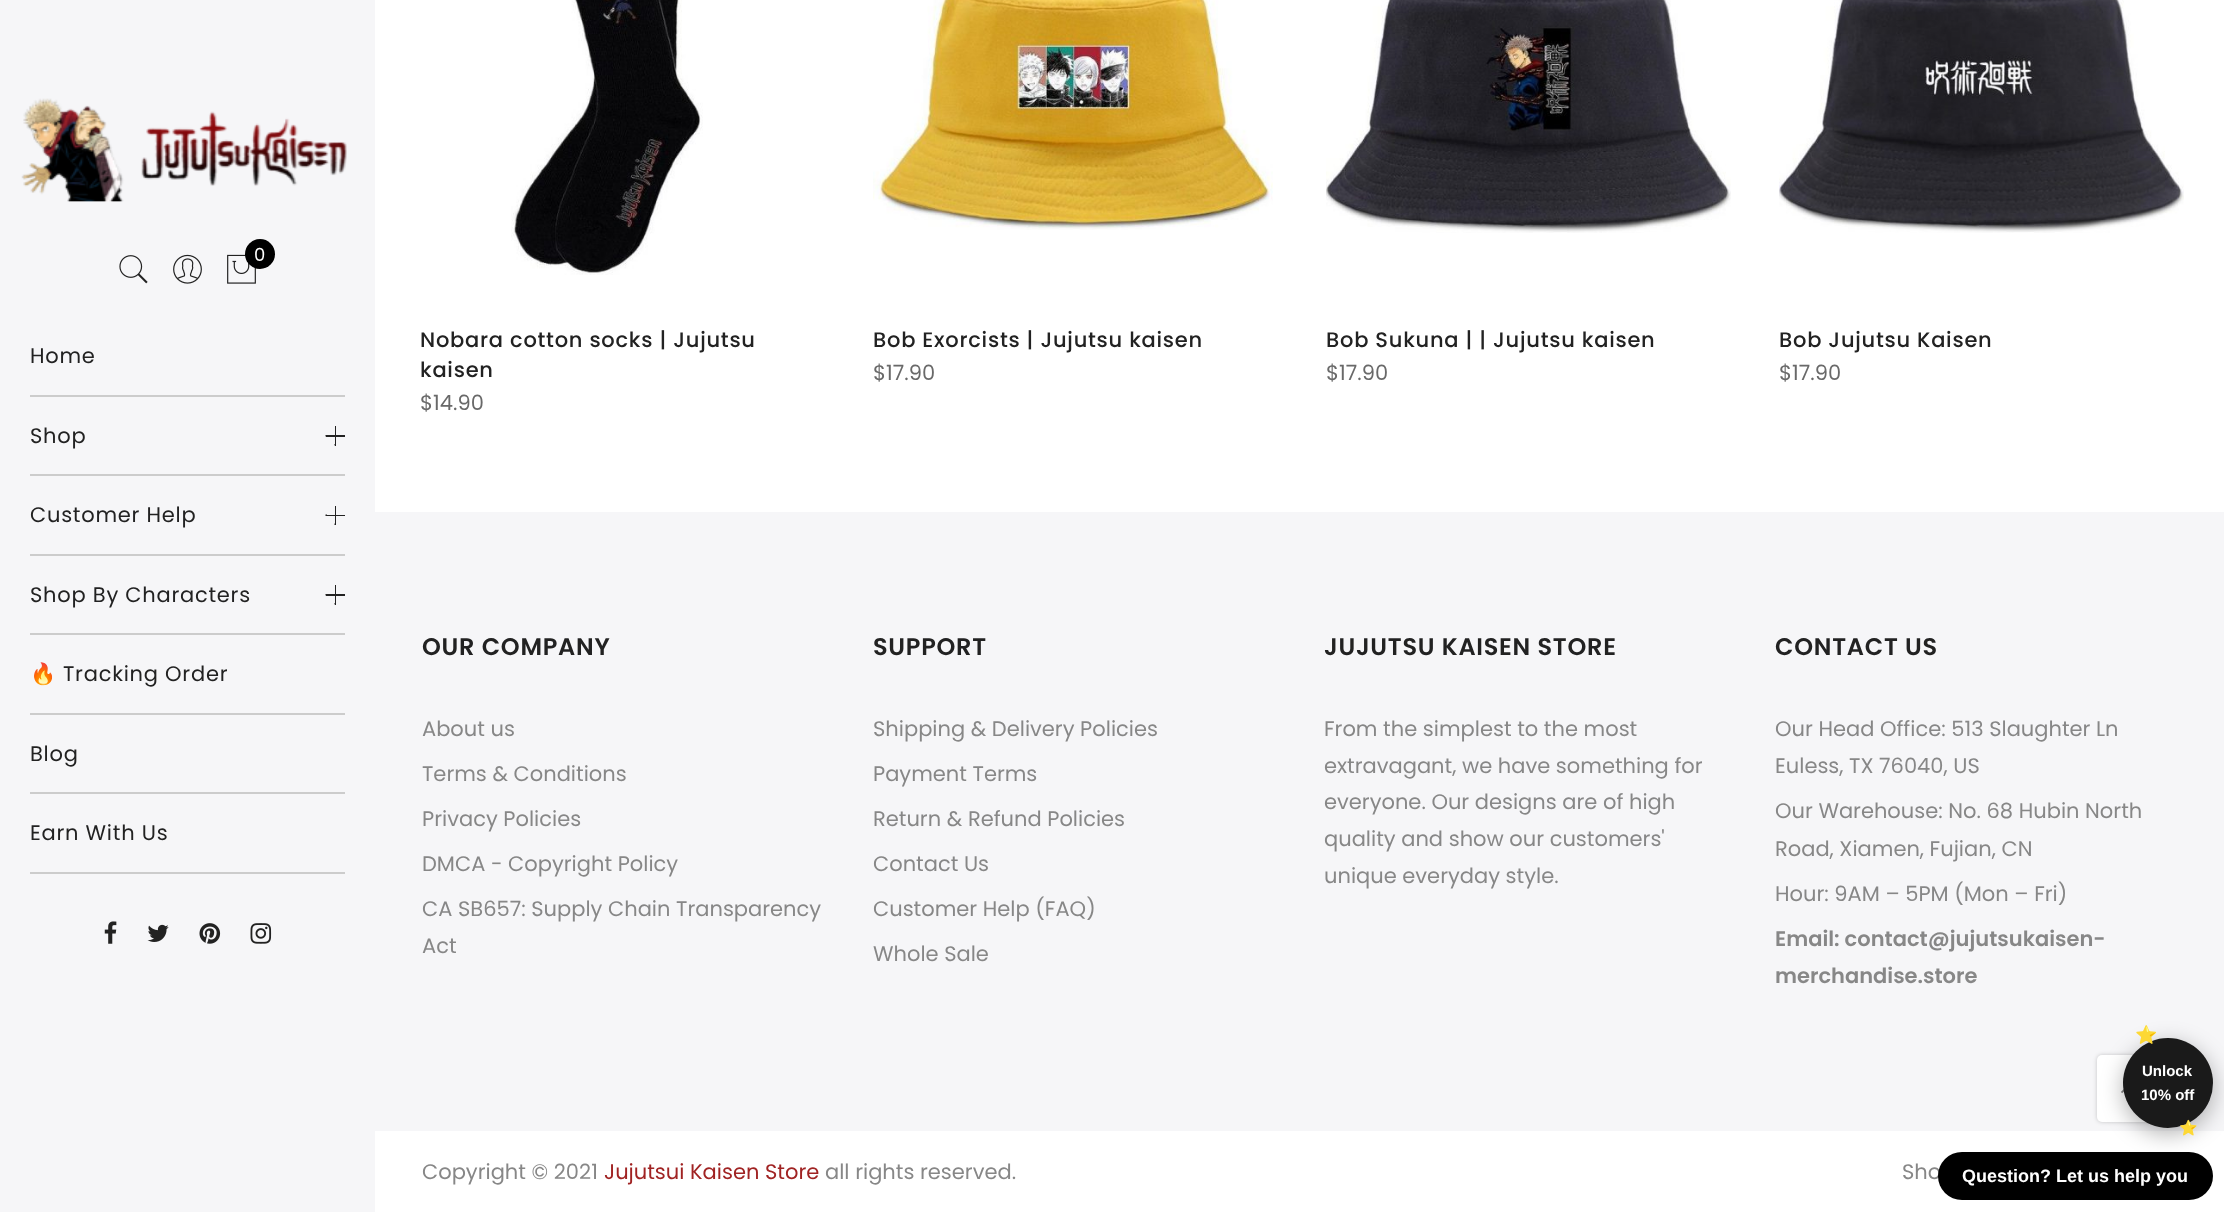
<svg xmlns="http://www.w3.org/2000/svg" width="2224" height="1212">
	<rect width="100%" height="100%" fill="#FFFFFF" />
	<rect x="0" y="0" width="375" height="1212" fill="#F6F6F8" />
	<image x="21" y="98" width="326" height="104" href="assets/img1.png" />
	<image x="119" y="255" width="29" height="29" href="assets/img2.png" />
	<image x="173" y="254" width="29" height="30" href="assets/img3.png" />
	<image x="227" y="254" width="29" height="30" href="assets/img4.png" />
	<circle cx="260" cy="254" r="15" fill="#000000" />
	<text x="254" y="261" font-family="Poppins" font-size="18" fill="#FFFFFF">0</text>
	<rect x="30" y="395" width="315" height="2" fill="#CCCCCC" />
	<text x="30" y="363" font-family="Poppins" font-size="21" letter-spacing="0.75" fill="#222222">Home</text>
	<rect x="30" y="474" width="315" height="2" fill="#CCCCCC" />
	<text x="30" y="443" font-family="Poppins" font-size="21" letter-spacing="0.75" fill="#222222">Shop</text>
	<rect x="335" y="426" width="1" height="20" fill="#222222" />
	<path d="M334.5 445.5V444H336V445.5ZM325.5 436.5V435H327V436.5Z" fill="#222222" />
	<rect x="326" y="435" width="19" height="2" fill="#222222" />
	<rect x="30" y="554" width="315" height="2" fill="#CCCCCC" />
	<text x="30" y="522" font-family="Poppins" font-size="21" letter-spacing="0.75" fill="#222222">Customer Help</text>
	<rect x="335" y="506" width="1" height="19" fill="#222222" />
	<path d="M334.5 525V523.5H336V525ZM325.5 516V514.5H327V516Z" fill="#222222" />
	<rect x="326" y="515" width="19" height="1" fill="#222222" />
	<rect x="30" y="633" width="315" height="2" fill="#CCCCCC" />
	<text x="30" y="602" font-family="Poppins" font-size="21" letter-spacing="0.75" fill="#222222">Shop By Characters</text>
	<rect x="335" y="585" width="1" height="20" fill="#222222" />
	<path d="M334.5 604.5V603H336V604.5ZM325.5 595.5V594H327V595.5Z" fill="#222222" />
	<rect x="326" y="594" width="19" height="2" fill="#222222" />
	<rect x="30" y="713" width="315" height="2" fill="#CCCCCC" />
	<text x="30" y="681" font-family="Noto Color Emoji" font-size="21" letter-spacing="0.75" fill="#222222">🔥</text>
	<text x="63" y="681" font-family="Poppins" font-size="21" letter-spacing="0.75" fill="#222222">Tracking Order</text>
	<rect x="30" y="792" width="315" height="2" fill="#CCCCCC" />
	<text x="30" y="761" font-family="Poppins" font-size="21" letter-spacing="0.75" fill="#222222">Blog</text>
	<rect x="30" y="872" width="315" height="2" fill="#CCCCCC" />
	<text x="30" y="840" font-family="Poppins" font-size="21" letter-spacing="0.75" fill="#222222">Earn With Us</text>
	<image x="104" y="921" width="13" height="23" href="assets/img5.png" />
	<image x="147" y="924" width="22" height="18" href="assets/img6.png" />
	<image x="199" y="923" width="22" height="21" href="assets/img7.png" />
	<image x="250" y="923" width="22" height="21" href="assets/img8.png" />
	<image x="511" y="0" width="192" height="275" href="assets/img9.png" />
	<g font-family="Poppins" font-size="21" font-weight="500" letter-spacing="0.75" fill="#222222">
		<text x="420" y="347">Nobara cotton socks | Jujutsu</text>
		<text x="420" y="377">kaisen</text>
	</g>
	<text x="420" y="410" font-family="Poppins" font-size="21" fill="#696969">$14.90</text>
	<image x="873" y="0" width="400" height="230" href="assets/img10.png" />
	<text x="873" y="347" font-family="Poppins" font-size="21" font-weight="500" letter-spacing="0.75" fill="#222222">Bob Exorcists | Jujutsu kaisen</text>
	<text x="873" y="380" font-family="Poppins" font-size="21" fill="#696969">$17.90</text>
	<image x="1326" y="0" width="405" height="233" href="assets/img11.png" />
	<text x="1326" y="347" font-family="Poppins" font-size="21" font-weight="500" letter-spacing="0.75" fill="#222222">Bob Sukuna | | Jujutsu kaisen</text>
	<text x="1326" y="380" font-family="Poppins" font-size="21" fill="#696969">$17.90</text>
	<image x="1779" y="0" width="405" height="233" href="assets/img12.png" />
	<text x="1779" y="347" font-family="Poppins" font-size="21" font-weight="500" letter-spacing="0.75" fill="#222222">Bob Jujutsu Kaisen</text>
	<text x="1779" y="380" font-family="Poppins" font-size="21" fill="#696969">$17.90</text>
	<rect x="375" y="512" width="1849" height="619" fill="#F6F6F8" />
	<text x="422" y="655" font-family="Poppins" font-size="24" font-weight="600" letter-spacing="0.75" fill="#222222">OUR COMPANY</text>
	<g font-family="Poppins" font-size="21" fill="#878787">
		<text x="422" y="736">About us</text>
		<text x="422" y="781">Terms &amp; Conditions</text>
		<text x="422" y="826">Privacy Policies</text>
		<text x="422" y="871">DMCA - Copyright Policy</text>
		<text x="422" y="916">CA SB657: Supply Chain Transparency</text>
		<text x="422" y="953">Act</text>
	</g>
	<text x="873" y="655" font-family="Poppins" font-size="24" font-weight="600" letter-spacing="0.75" fill="#222222">SUPPORT</text>
	<g font-family="Poppins" font-size="21" fill="#878787">
		<text x="873" y="736">Shipping &amp; Delivery Policies</text>
		<text x="873" y="781">Payment Terms</text>
		<text x="873" y="826">Return &amp; Refund Policies</text>
		<text x="873" y="871">Contact Us</text>
		<text x="873" y="916">Customer Help (FAQ)</text>
		<text x="873" y="961">Whole Sale</text>
	</g>
	<text x="1324" y="655" font-family="Poppins" font-size="24" font-weight="600" letter-spacing="0.75" fill="#222222">JUJUTSU KAISEN STORE</text>
	<g font-family="Poppins" font-size="21" fill="#878787">
		<text x="1324" y="736">From the simplest to the most</text>
		<text x="1324" y="773">extravagant, we have something for</text>
		<text x="1324" y="809">everyone. Our designs are of high</text>
		<text x="1324" y="846">quality and show our customers'</text>
		<text x="1324" y="883">unique everyday style.</text>
	</g>
	<text x="1775" y="655" font-family="Poppins" font-size="24" font-weight="600" letter-spacing="0.75" fill="#222222">CONTACT US</text>
	<g font-family="Poppins" font-size="21" fill="#878787">
		<text x="1775" y="736">Our Head Office: 513 Slaughter Ln</text>
		<text x="1775" y="773">Euless, TX 76040, US</text>
		<text x="1775" y="818">Our Warehouse: No. 68 Hubin North</text>
		<text x="1775" y="856">Road, Xiamen, Fujian, CN</text>
		<text x="1775" y="901">Hour: 9AM – 5PM (Mon – Fri)</text>
	</g>
	<g font-family="Poppins" font-size="21" font-weight="600" fill="#878787">
		<text x="1775" y="946">Email: contact@jujutsukaisen-</text>
		<text x="1775" y="983">merchandise.store</text>
	</g>
	<text x="422" y="1179" font-family="Poppins" font-size="21" fill="#878787">Copyright © 2021</text>
	<text x="604" y="1179" font-family="Poppins" font-size="21" fill="#A02323">Jujutsui Kaisen Store</text>
	<g font-family="Poppins" font-size="21" fill="#878787">
		<text x="825" y="1179">all rights reserved.</text>
		<text x="1902" y="1179">Sho</text>
	</g>
	<rect x="2097" y="1055" width="68" height="67" rx="5" fill="#000000" fill-opacity="0.2" filter="blur(2px)" />
	<rect x="2097" y="1055" width="68" height="67" rx="5" fill="#FFFFFF" />
	<image x="2121" y="1089" width="3" height="5" href="assets/img13.png" />
	<rect x="1938" y="1152" width="275" height="48" rx="24" fill="#000000" />
	<rect x="2123" y="1044" width="90" height="90" rx="45" fill="#000000" fill-opacity="0.3" filter="blur(11px)" />
	<circle cx="2168" cy="1083" r="45" fill="#1A1A1A" />
	<text x="2135" y="1041" font-family="Noto Color Emoji" font-size="18" font-weight="700" fill="#FFD700">⭐</text>
	<g font-family="Liberation Sans" font-size="15" font-weight="700" fill="#FFFFFF">
		<text x="2142" y="1076">Unlock</text>
		<text x="2141" y="1100">10% off</text>
	</g>
	<text x="2179" y="1133" font-family="Noto Color Emoji" font-size="15" font-weight="700" fill="#FFD700">⭐</text>
	<text x="1962" y="1182" font-family="Liberation Sans" font-size="18" font-weight="700" fill="#FFFFFF">Question? Let us help you</text>
</svg>
